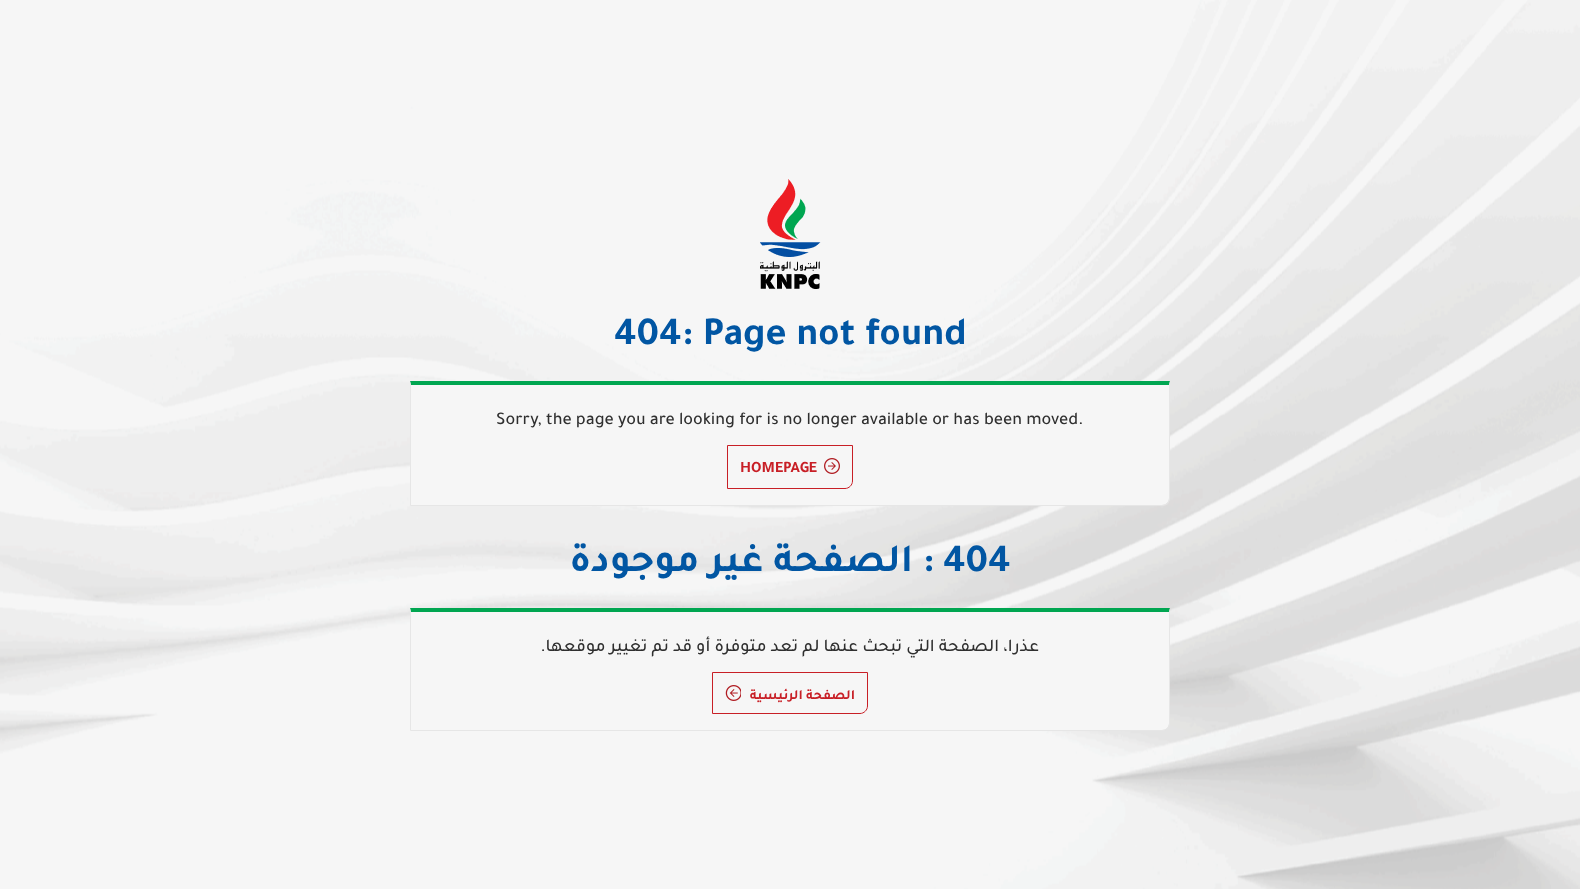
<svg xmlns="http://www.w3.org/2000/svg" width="1580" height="889">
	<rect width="100%" height="100%" fill="#FFFFFF" />
	<image x="0" y="0" width="1580" height="889" href="assets/img1.png" />
	<image x="760" y="179" width="61" height="110" href="assets/img2.png" />
	<text x="614" y="344" font-family="Tajawal" font-size="40" font-weight="700" fill="#0156A3">404: Page not found</text>
	<path d="M411 385H1169V498C1169 502 1166 505 1162 505H411Z" fill="#F6F6F6" />
	<path d="M410 381L411 385H1169L1170 381Z" fill="#00A651" />
	<path d="M1170 381L1169 385V498C1169 500 1168 502 1167 503L1168 504C1169 502 1170 500 1170 498Z" fill="#E6E6E6" />
	<path d="M1162 506C1164 506 1166 505 1168 504L1167 503C1166 504 1164 505 1162 505H411L410 506Z" fill="#E6E6E6" />
	<path d="M410 381V506L411 505V385Z" fill="#E6E6E6" />
	<text x="496" y="424" font-family="Tajawal" font-size="18" font-weight="500" fill="#2F2F2F">Sorry, the page you are looking for is no longer available or has been moved.</text>
	<path d="M727.5 445.5H852.5V481C852.5 485 849 488.5 845 488.5H727.5Z" fill="none" stroke="#C81F26" />
	<text x="740" y="472" font-family="Tajawal" font-size="16" font-weight="700" fill="#C81F26">HOMEPAGE</text>
	<image x="824" y="458" width="16" height="16" href="assets/img3.png" />
	<text x="934" y="571" font-family="Tajawal" font-size="40" font-weight="700" direction="rtl" fill="#0156A3">: الصفحة غير موجودة</text>
	<text x="943" y="571" font-family="Tajawal" font-size="40" font-weight="700" fill="#0156A3">404</text>
	<path d="M411 612H1169V723C1169 727 1166 730 1162 730H411Z" fill="#F6F6F6" />
	<path d="M410 608L411 612H1169L1170 608Z" fill="#00A651" />
	<path d="M1170 608L1169 612V723C1169 725 1168 727 1167 728H1168C1169 727 1170 725 1170 723Z" fill="#E6E6E6" />
	<path d="M1162 731C1164 731 1166 730 1168 728H1167C1166 729 1164 730 1162 730H411L410 731Z" fill="#E6E6E6" />
	<path d="M410 608V731L411 730V612Z" fill="#E6E6E6" />
	<text x="1039" y="651" font-family="Tajawal" font-size="18" font-weight="500" direction="rtl" fill="#2F2F2F">عذرا، الصفحة التي تبحث عنها لم تعد متوفرة أو قد تم تغيير موقعها.</text>
	<path d="M712.5 672.5H867.5V706C867.5 710 864 713.5 860 713.5H712.5Z" fill="none" stroke="#C81F26" />
	<image x="725" y="685" width="16" height="16" href="assets/img4.png" />
	<text x="855" y="699" font-family="Tajawal" font-size="14" font-weight="700" direction="rtl" fill="#C81F26">الصفحة الرئيسية</text>
</svg>
